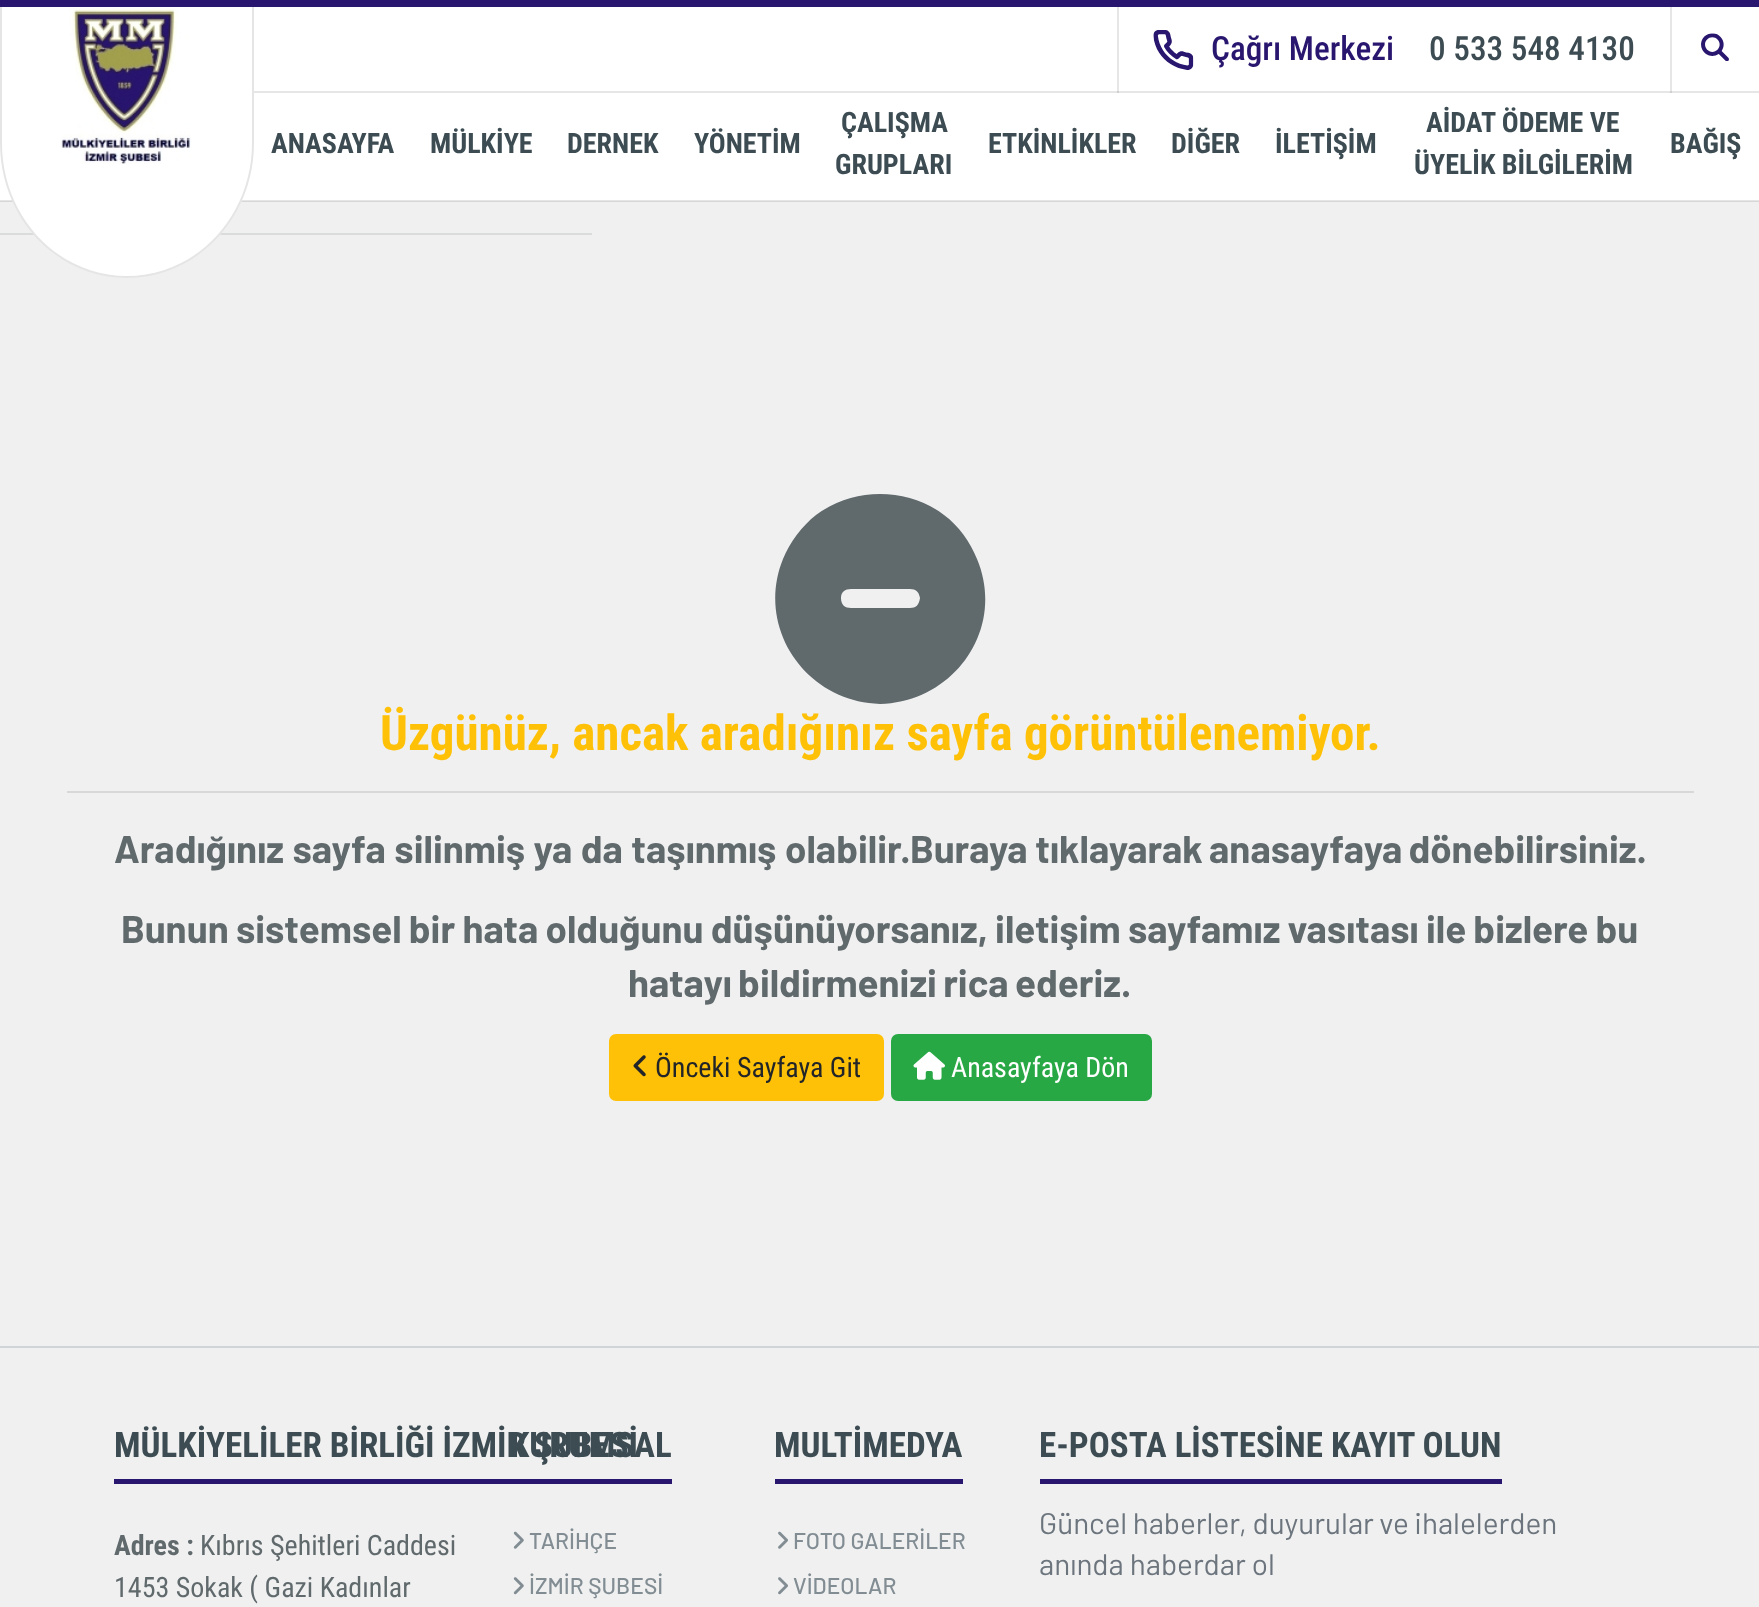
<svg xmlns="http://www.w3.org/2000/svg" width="1759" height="1607">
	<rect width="100%" height="100%" fill="#F0F0F0" />
	<rect x="0" y="7" width="1759" height="194" fill="#FFFFFF" />
	<rect x="254" y="91" width="1505" height="2" fill="#E6E6E6" />
	<rect x="0" y="0" width="1759" height="7" fill="#29166F" />
	<rect x="0" y="200" width="1759" height="2" fill="#000000" fill-opacity="0.1" />
	<rect x="0" y="233" width="592" height="2" fill="#DADCDC" />
	<path d="M0 7H254V143C254 218 197 278 127 278C57 278 0 218 0 143Z" fill="#FFFFFF" />
	<path d="M0 7H254V143C254 218 197 278 127 278C57 278 0 218 0 143ZM2 7H252V143C252 217 196 276 127 276C58 276 2 217 2 143Z" fill="#000000" fill-opacity="0.1" fill-rule="evenodd" />
	<image x="61" y="8" width="130" height="156" href="assets/img1.png" />
	<rect x="1117" y="7" width="2" height="86" fill="#E6E6E6" />
	<rect x="1117" y="91" width="2" height="2" fill="#CFCFCF" />
	<image x="1153" y="30" width="41" height="40" href="assets/img2.png" />
	<text x="1211" y="60" font-family="Roboto Condensed" font-size="33.25" font-weight="500" fill="#29166F">Çağrı Merkezi</text>
	<text x="1429" y="60" font-family="Roboto Condensed" font-size="33.25" font-weight="500" fill="#3C4C52">0 533 548 4130</text>
	<rect x="1670" y="7" width="2" height="86" fill="#E6E6E6" />
	<rect x="1670" y="91" width="2" height="2" fill="#CFCFCF" />
	<image x="1701" y="33" width="28" height="28" href="assets/img3.png" />
	<g font-family="Roboto Condensed" font-size="28" font-weight="700" fill="#3C4C52">
		<text x="271" y="153">ANASAYFA</text>
		<text x="430" y="153">MÜLKİYE</text>
		<text x="567" y="153">DERNEK</text>
		<text x="694" y="153">YÖNETİM</text>
		<text x="841" y="132">ÇALIŞMA</text>
		<text x="835" y="174">GRUPLARI</text>
		<text x="988" y="153">ETKİNLİKLER</text>
		<text x="1171" y="153">DİĞER</text>
		<text x="1275" y="153">İLETİŞİM</text>
		<text x="1426" y="132">AİDAT ÖDEME VE</text>
		<text x="1414" y="174">ÜYELİK BİLGİLERİM</text>
		<text x="1670" y="153">BAĞIŞ</text>
	</g>
	<path d="M880 704C955 702 1006 628 977 559C970 542 959 526 944 515C926 501 903 494 880 494C857 494 835 501 816 515C802 526 790 542 783 559C755 628 806 702 880 704ZM851 589H910C916 589 919 592 920 598C919 605 916 608 910 608H851C845 608 841 605 841 598C841 592 845 589 851 589Z" fill="#60696C" />
	<text x="380" y="750" font-family="Roboto Condensed" font-size="49" font-weight="700" fill="#FFC107">Üzgünüz, ancak aradığınız sayfa görüntülenemiyor.</text>
	<rect x="67" y="791" width="1627" height="2" fill="#D8D8D8" />
	<g font-family="Barlow" font-size="38.5" font-weight="700" fill="#60696C">
		<text x="114" y="863" word-spacing="0.75">Aradığınız sayfa silinmiş ya da taşınmış olabilir.</text>
		<text x="910" y="863">Buraya tıklayarak</text>
		<text x="1209" y="863" word-spacing="-1.5">anasayfaya dönebilirsiniz.</text>
		<text x="121" y="943" word-spacing="-0.5">Bunun sistemsel bir hata olduğunu düşünüyorsanız, iletişim sayfamız vasıtası ile bizlere bu</text>
		<text x="628" y="997" word-spacing="-1.5">hatayı bildirmenizi rica ederiz.</text>
	</g>
	<rect x="610" y="1035" width="273" height="65" rx="6" fill="#FFC107" stroke="#FFC107" stroke-width="2" />
	<image x="633" y="1055" width="13" height="22" href="assets/img4.png" />
	<text x="655" y="1077" font-family="Roboto Condensed" font-size="28" fill="#212529">Önceki Sayfaya Git</text>
	<rect x="892" y="1035" width="259" height="65" rx="6" fill="#28A745" stroke="#28A745" stroke-width="2" />
	<image x="913" y="1051" width="32" height="29" href="assets/img5.png" />
	<text x="951" y="1077" font-family="Roboto Condensed" font-size="28" fill="#FFFFFF">Anasayfaya Dön</text>
	<rect x="0" y="1346" width="1759" height="2" fill="#CFD4D8" />
	<rect x="114" y="1479" width="558" height="5" fill="#29166F" />
	<text x="114" y="1457" font-family="Roboto Condensed" font-size="35" font-weight="700" fill="#3C4C52">MÜLKİYELİLER BİRLİĞİ İZMİR ŞUBESİ</text>
	<text x="114" y="1555" font-family="Roboto Condensed" font-size="28" font-weight="700" fill="#60696C">Adres :</text>
	<g font-family="Roboto Condensed" font-size="28" fill="#60696C">
		<text x="200" y="1555">Kıbrıs Şehitleri Caddesi</text>
		<text x="114" y="1597">1453 Sokak ( Gazi Kadınlar</text>
	</g>
	<rect x="775" y="1479" width="188" height="5" fill="#29166F" />
	<text x="774" y="1457" font-family="Roboto Condensed" font-size="35" font-weight="700" fill="#3C4C52">MULTİMEDYA</text>
	<image x="778" y="1531" width="10" height="18" href="assets/img6.png" />
	<text x="793" y="1549" font-family="Barlow" font-size="22.75" font-weight="500" fill="#818C93">FOTO GALERİLER</text>
	<image x="778" y="1577" width="10" height="18" href="assets/img7.png" />
	<text x="793" y="1594" font-family="Barlow" font-size="22.75" font-weight="500" fill="#818C93">VİDEOLAR</text>
	<rect x="1040" y="1479" width="462" height="5" fill="#29166F" />
	<text x="1039" y="1457" font-family="Roboto Condensed" font-size="35" font-weight="700" fill="#3C4C52">E-POSTA LİSTESİNE KAYIT OLUN</text>
	<g font-family="Barlow" font-size="29.75" fill="#6C757D">
		<text x="1039" y="1534" word-spacing="-0.5">Güncel haberler, duyurular ve ihalelerden</text>
		<text x="1039" y="1575">anında haberdar ol</text>
	</g>
	<text x="510" y="1457" font-family="Roboto Condensed" font-size="35" font-weight="700" fill="#3C4C52">KURUMSAL</text>
	<image x="513" y="1531" width="11" height="18" href="assets/img8.png" />
	<text x="529" y="1549" font-family="Barlow" font-size="22.75" font-weight="500" fill="#818C93">TARİHÇE</text>
	<image x="513" y="1577" width="11" height="18" href="assets/img9.png" />
	<text x="529" y="1594" font-family="Barlow" font-size="22.75" font-weight="500" fill="#818C93">İZMİR ŞUBESİ</text>
</svg>
